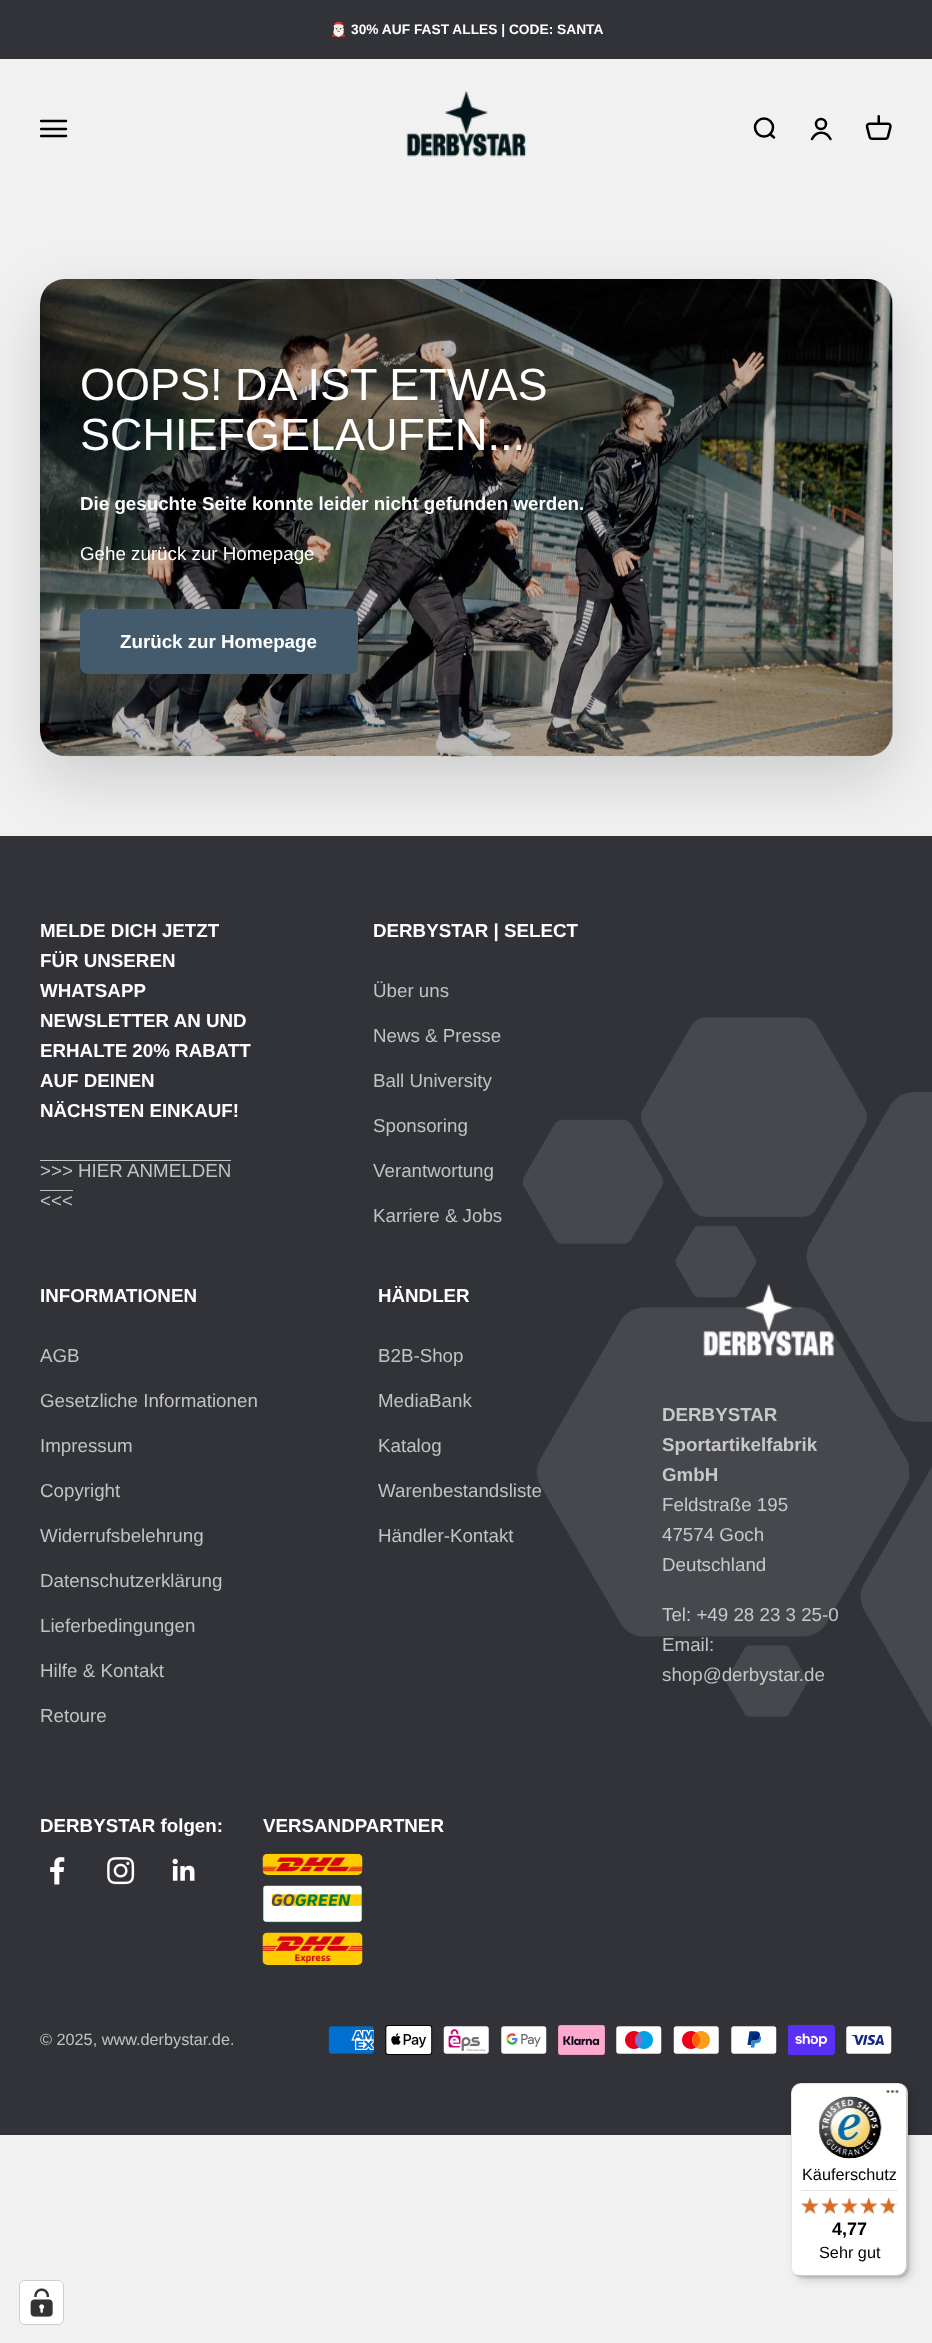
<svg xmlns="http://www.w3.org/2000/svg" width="932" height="2343">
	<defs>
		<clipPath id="clip1"><rect x="40" y="115" width="28" height="28" /></clipPath>
	</defs>
	<rect width="100%" height="100%" fill="#F1F1F1" />
	<rect x="0" y="0" width="932" height="59" fill="#313338" />
	<text x="330" y="34" font-family="Noto Color Emoji" font-size="13.75" font-weight="700" fill="#FFFFFF">🎅🏻</text>
	<text x="351" y="34" font-family="Liberation Sans" font-size="13.75" font-weight="700" fill="#FFFFFF">30% AUF FAST ALLES | CODE: SANTA</text>
	<g clip-path="url(#clip1)">
		<path d="M41 121H66M41 129H66M41 136H66" fill="none" stroke="#000000" stroke-width="2.5" stroke-linecap="round" />
	</g>
	<image x="406" y="91" width="121" height="66" href="assets/img1.png" />
	<circle cx="764" cy="127.5" r="9" fill="none" stroke="#000000" stroke-width="2.5" />
	<path d="M770 134L774 137.5" fill="none" stroke="#000000" stroke-width="2.5" stroke-linecap="round" stroke-linejoin="round" />
	<circle cx="821" cy="124" r="5" fill="none" stroke="#000000" stroke-width="2.5" />
	<path d="M812 139C816 130.5 826.5 130.5 830.5 139" fill="none" stroke="#000000" stroke-width="2.5" stroke-linecap="round" />
	<image x="865" y="115" width="27" height="25" href="assets/img2.png" />
	<rect x="40" y="301" width="853" height="478" rx="25" fill="#000000" fill-opacity="0.15" filter="blur(31px)" />
	<image x="40" y="279" width="853" height="478" href="assets/img3.png" />
	<rect x="40" y="279" width="853" height="477" rx="25" fill="#000000" fill-opacity="0.25" />
	<g font-family="Liberation Sans" font-size="45" fill="#FFFFFF">
		<text x="80" y="400">OOPS! DA IST ETWAS</text>
		<text x="80" y="450">SCHIEFGELAUFEN...</text>
	</g>
	<text x="80" y="510" font-family="Liberation Sans" font-size="18.75" font-weight="700" fill="#FFFFFF">Die gesuchte Seite konnte leider nicht gefunden werden.</text>
	<text x="80" y="560" font-family="Liberation Sans" font-size="18.75" fill="#FFFFFF">Gehe zurück zur Homepage</text>
	<rect x="80" y="609" width="278" height="65" rx="8" fill="#435B6D" />
	<text x="120" y="648" font-family="Liberation Sans" font-size="18.75" font-weight="700" fill="#FFFFFF">Zurück zur Homepage</text>
	<rect x="0" y="836" width="932" height="1299" fill="#313338" />
	<g font-family="Liberation Sans" font-size="18.75" font-weight="700" fill="#FFFFFF">
		<text x="40" y="937">MELDE DICH JETZT</text>
		<text x="40" y="967">FÜR UNSEREN</text>
		<text x="40" y="997">WHATSAPP</text>
		<text x="40" y="1027">NEWSLETTER AN UND</text>
		<text x="40" y="1057">ERHALTE 20% RABATT</text>
		<text x="40" y="1087">AUF DEINEN</text>
		<text x="40" y="1117">NÄCHSTEN EINKAUF!</text>
	</g>
	<text x="40" y="1177" font-family="Liberation Sans" font-size="18.75" fill="#C1C2C3">&gt;&gt;&gt; HIER ANMELDEN</text>
	<rect x="40" y="1160" width="191" height="1" fill="#C1C2C3" />
	<text x="40" y="1207" font-family="Liberation Sans" font-size="18.75" fill="#C1C2C3">&lt;&lt;&lt;</text>
	<rect x="40" y="1190" width="33" height="1" fill="#C1C2C3" />
	<text x="373" y="937" font-family="Liberation Sans" font-size="18.75" font-weight="700" fill="#FFFFFF">DERBYSTAR | SELECT</text>
	<g font-family="Liberation Sans" font-size="18.75" fill="#C1C2C3">
		<text x="373" y="997">Über uns</text>
		<text x="373" y="1042">News &amp; Presse</text>
		<text x="373" y="1087">Ball University</text>
		<text x="373" y="1132">Sponsoring</text>
		<text x="373" y="1177">Verantwortung</text>
		<text x="373" y="1222">Karriere &amp; Jobs</text>
	</g>
	<text x="40" y="1302" font-family="Liberation Sans" font-size="18.75" font-weight="700" fill="#FFFFFF">INFORMATIONEN</text>
	<g font-family="Liberation Sans" font-size="18.75" fill="#C1C2C3">
		<text x="40" y="1362">AGB</text>
		<text x="40" y="1407">Gesetzliche Informationen</text>
		<text x="40" y="1452">Impressum</text>
		<text x="40" y="1497">Copyright</text>
		<text x="40" y="1542">Widerrufsbelehrung</text>
		<text x="40" y="1587">Datenschutzerklärung</text>
		<text x="40" y="1632">Lieferbedingungen</text>
		<text x="40" y="1677">Hilfe &amp; Kontakt</text>
		<text x="40" y="1722">Retoure</text>
	</g>
	<text x="378" y="1302" font-family="Liberation Sans" font-size="18.75" font-weight="700" fill="#FFFFFF">HÄNDLER</text>
	<g font-family="Liberation Sans" font-size="18.75" fill="#C1C2C3">
		<text x="378" y="1362">B2B-Shop</text>
		<text x="378" y="1407">MediaBank</text>
		<text x="378" y="1452">Katalog</text>
	</g>
	<image x="703" y="1283" width="131" height="74" href="assets/img4.png" />
	<g font-family="Liberation Sans" font-size="18.75" font-weight="700" fill="#C1C2C3">
		<text x="662" y="1421">DERBYSTAR</text>
		<text x="662" y="1451">Sportartikelfabrik</text>
		<text x="662" y="1481">GmbH</text>
	</g>
	<g font-family="Liberation Sans" font-size="18.75" fill="#C1C2C3">
		<text x="662" y="1511">Feldstraße 195</text>
		<text x="662" y="1541">47574 Goch</text>
		<text x="662" y="1571">Deutschland</text>
		<text x="662" y="1621">Tel: +49 28 23 3 25-0</text>
		<text x="662" y="1651">Email:</text>
		<text x="662" y="1681">shop@derbystar.de</text>
	</g>
	<image x="522" y="1017" width="410" height="710" href="assets/img21.png" />
	<g font-family="Liberation Sans" font-size="18.75" fill="#C1C2C3">
		<text x="378" y="1497">Warenbestandsliste</text>
		<text x="378" y="1542">Händler-Kontakt</text>
	</g>
	<text x="40" y="1832" font-family="Liberation Sans" font-size="18.75" font-weight="700" fill="#FFFFFF">DERBYSTAR folgen:</text>
	<image x="50" y="1857" width="15" height="28" href="assets/img5.png" />
	<image x="107" y="1857" width="28" height="28" href="assets/img6.png" />
	<image x="172" y="1858" width="23" height="23" href="assets/img7.png" />
	<text x="263" y="1832" font-family="Liberation Sans" font-size="18.75" font-weight="700" fill="#FFFFFF">VERSANDPARTNER</text>
	<image x="262" y="1853" width="101" height="22" href="assets/img8.png" />
	<image x="262" y="1885" width="101" height="38" href="assets/img9.png" />
	<image x="262" y="1932" width="101" height="33" href="assets/img10.png" />
	<text x="40" y="2045" font-family="Liberation Sans" font-size="16.25" fill="#C1C2C3">© 2025, www.derbystar.de.</text>
	<image x="328" y="2026" width="46" height="28" href="assets/img11.png" />
	<image x="385" y="2025" width="48" height="30" href="assets/img12.png" />
	<image x="443" y="2026" width="46" height="28" href="assets/img13.png" />
	<image x="501" y="2026" width="46" height="28" href="assets/img14.png" />
	<image x="558" y="2025" width="47" height="30" href="assets/img15.png" />
	<image x="616" y="2026" width="46" height="28" href="assets/img16.png" />
	<image x="673" y="2026" width="46" height="28" href="assets/img17.png" />
	<image x="731" y="2026" width="46" height="28" href="assets/img18.png" />
	<image x="788" y="2025" width="47" height="30" href="assets/img19.png" />
	<image x="846" y="2026" width="46" height="28" href="assets/img20.png" />
	<rect x="795" y="2086" width="116" height="194" rx="10" fill="#000000" fill-opacity="0.15" filter="blur(5px)" />
	<rect x="793" y="2084" width="116" height="194" rx="10" fill="#000000" fill-opacity="0.15" filter="blur(1px)" />
	<rect x="791" y="2083" width="117" height="193" rx="10" fill="#FFFFFF" />
	<path d="M802 2084H899C901 2084 904 2085 906 2087C904 2084 901 2083 898 2083H801C795 2083 791 2087 791 2093V2266C791 2268 792 2270 793 2272C792 2271 792 2269 792 2268V2094C792 2088 797 2084 802 2084Z" fill="#000000" fill-opacity="0.1" />
	<path d="M795 2274C796 2275 799 2276 801 2276H898C904 2276 908 2272 908 2266V2093C908 2090 906 2087 904 2085C905 2087 906 2089 906 2091V2265C906 2271 902 2275 896 2275H800C798 2275 796 2275 795 2274Z" fill="#000000" fill-opacity="0.2" />
	<path d="M897 2276H898C904 2276 908 2272 908 2266V2093C908 2090 907 2087 905 2085C906 2087 907 2089 907 2092V2266C907 2271 902 2276 897 2276Z" fill="#323232" fill-opacity="0.2" />
	<path d="M897 2276H898C904 2276 908 2272 908 2266V2093C908 2090 907 2087 905 2085C906 2087 907 2089 907 2092V2266C907 2271 902 2276 897 2276Z" fill="#FFFFFF" fill-opacity="0.3" />
	<image x="886" y="2090" width="13" height="3" href="assets/img22.png" />
	<image x="819" y="2096" width="63" height="63" href="assets/img23.png" />
	<text x="802" y="2180" font-family="Liberation Sans" font-size="16.25" fill="#000000">Käuferschutz</text>
	<rect x="801" y="2190" width="97" height="1" fill="#E5E5E5" />
	<image x="801" y="2198" width="18" height="15" href="assets/img24.png" />
	<image x="822" y="2197" width="16" height="17" href="assets/img25.png" />
	<image x="841" y="2198" width="17" height="16" href="assets/img26.png" />
	<image x="860" y="2197" width="17" height="17" href="assets/img27.png" />
	<image x="880" y="2198" width="18" height="16" href="assets/img28.png" />
	<image x="801" y="2197" width="18" height="17" href="assets/img29.png" />
	<image x="821" y="2197" width="18" height="17" href="assets/img30.png" />
	<image x="841" y="2197" width="17" height="17" href="assets/img31.png" />
	<image x="860" y="2197" width="17" height="17" href="assets/img32.png" />
	<image x="880" y="2197" width="14" height="17" href="assets/img33.png" />
	<text x="832" y="2235" font-family="Liberation Sans" font-size="18" font-weight="700" fill="#000000">4,77</text>
	<text x="819" y="2258" font-family="Liberation Sans" font-size="16.25" fill="#000000">Sehr gut</text>
	<rect x="19.5" y="2280.5" width="44" height="44" rx="5.5" fill="none" stroke="#CDCDCD" />
	<rect x="20" y="2281" width="43" height="43" rx="5" fill="#FFFFFF" />
	<image x="30" y="2288" width="23" height="29" href="assets/img34.png" />
</svg>
